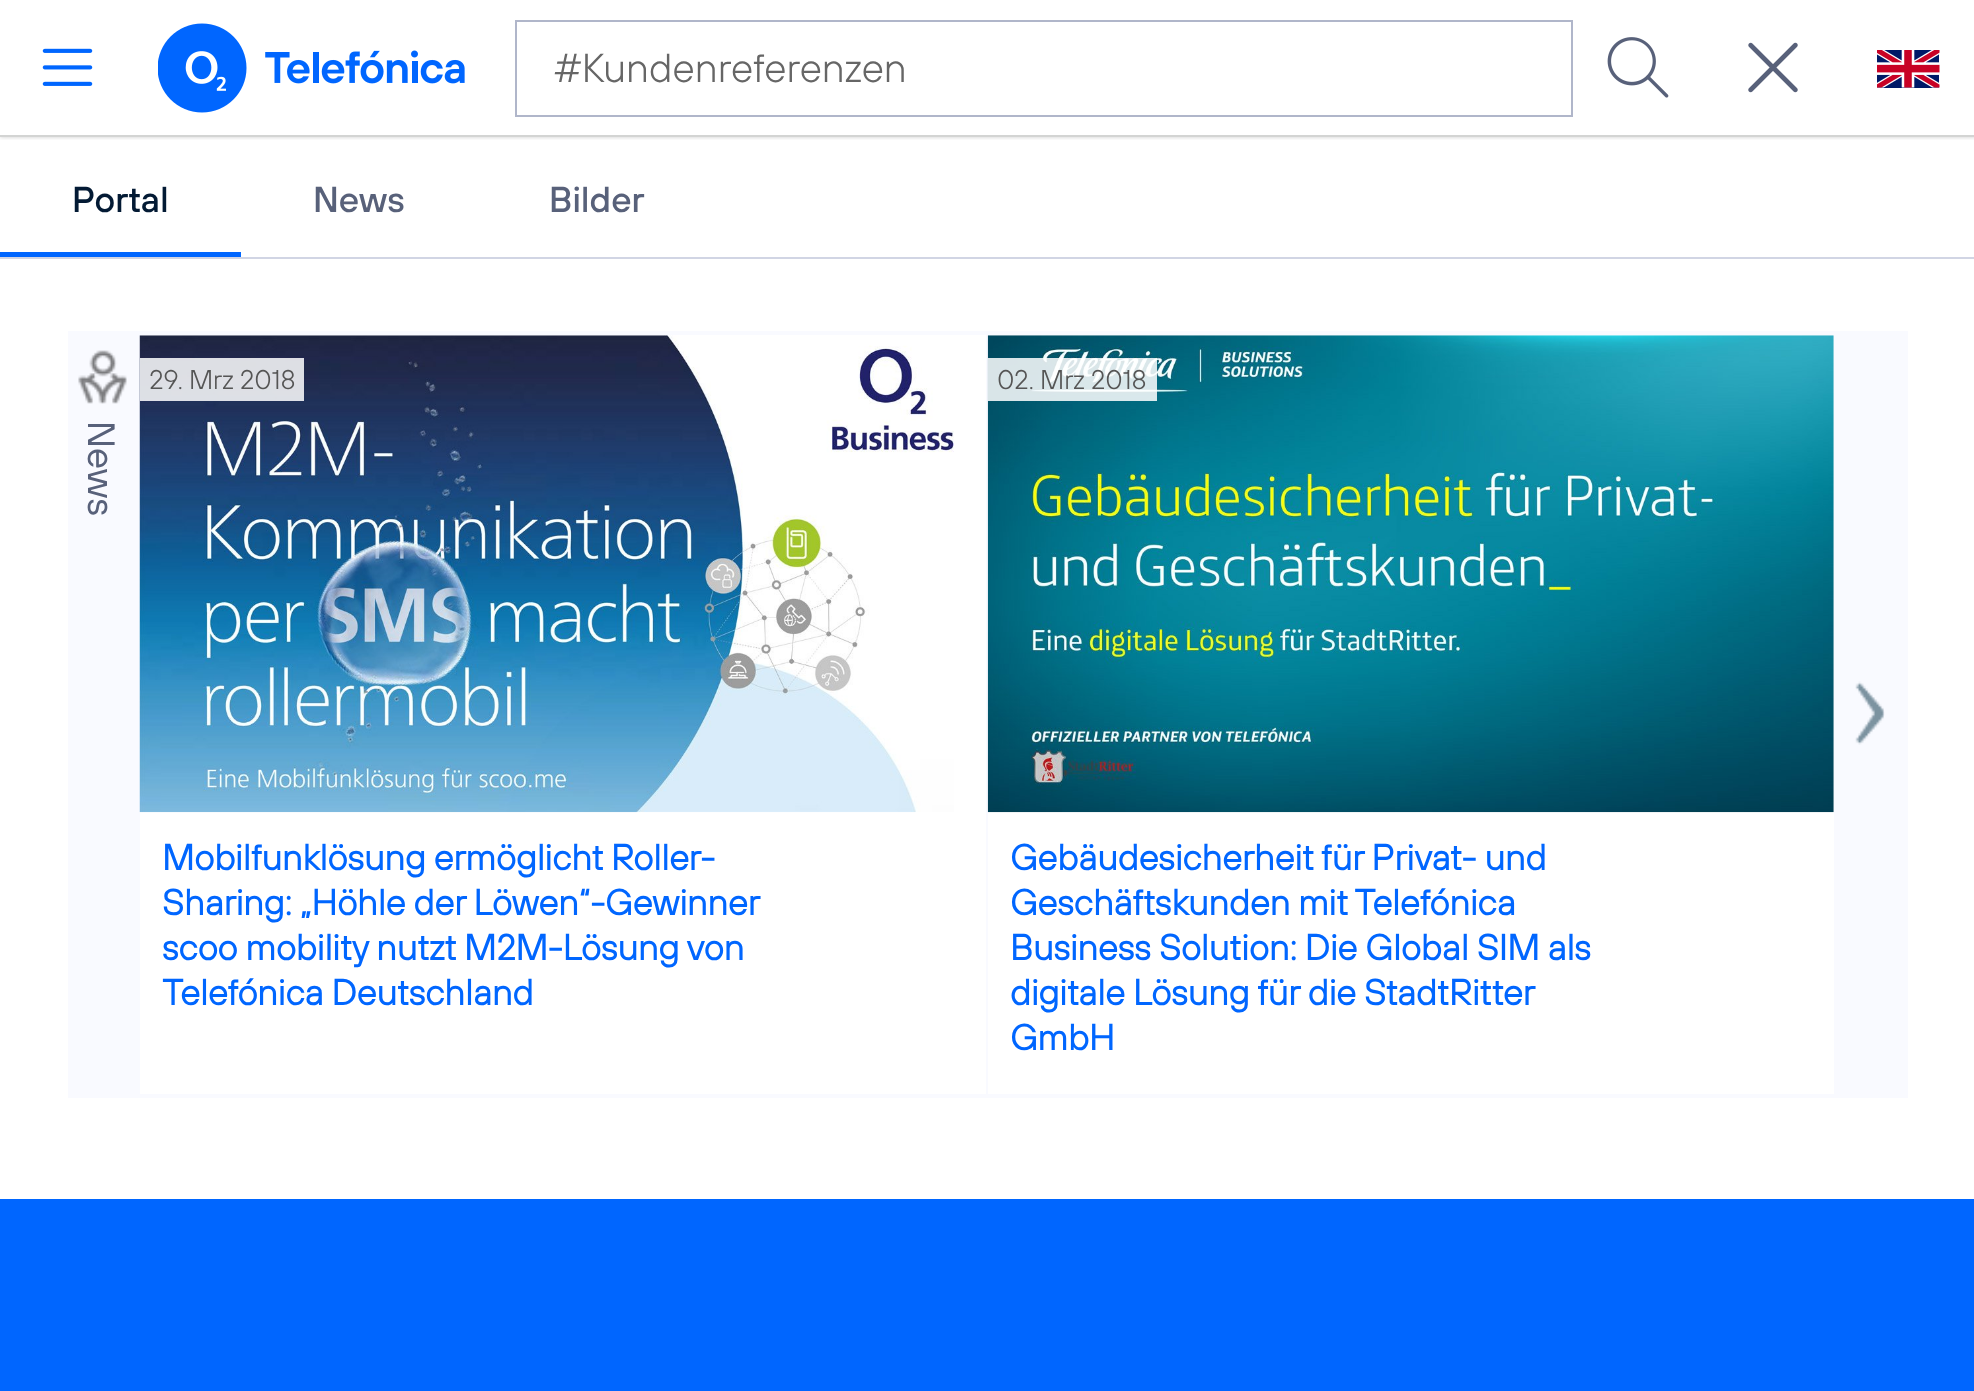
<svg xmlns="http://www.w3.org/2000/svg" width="1974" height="1391">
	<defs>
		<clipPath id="clip1"><rect x="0" y="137" width="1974" height="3" /></clipPath>
	</defs>
	<rect width="100%" height="100%" fill="#FFFFFF" />
	<g clip-path="url(#clip1)">
		<rect x="0" y="0" width="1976" height="137" fill="#000000" fill-opacity="0.2" filter="blur(2px)" />
	</g>
	<rect x="0" y="135" width="1974" height="2" fill="#D3D4D3" />
	<image x="42" y="48" width="51" height="38" href="assets/img1.png" />
	<image x="158" y="23" width="307" height="90" href="assets/img2.png" />
	<rect x="516" y="21" width="1056" height="95" fill="none" stroke="#B0B6CA" stroke-width="2" />
	<text x="554" y="82" font-family="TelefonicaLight" font-size="40.5" font-weight="300" fill="#666666">#Kundenreferenzen</text>
	<image x="1607" y="37" width="62" height="61" href="assets/img3.png" />
	<image x="1748" y="42" width="50" height="51" href="assets/img4.png" />
	<image x="1877" y="50" width="63" height="38" href="assets/img5.png" />
	<rect x="0" y="257" width="1974" height="2" fill="#D1D5E4" />
	<rect x="0" y="252" width="241" height="5" fill="#0066FF" />
	<text x="72" y="212" font-family="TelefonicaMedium" font-size="36" font-weight="500" fill="#031A34">Portal</text>
	<g font-family="TelefonicaMedium" font-size="36" font-weight="500" fill="#58617A">
		<text x="313" y="212">News</text>
		<text x="549" y="212">Bilder</text>
	</g>
	<rect x="68" y="331" width="1840" height="767" fill="#F9FAFF" />
	<image x="78" y="350" width="49" height="54" href="assets/img6.png" />
	<rect x="140" y="335" width="846" height="759" fill="#FFFFFF" />
	<image x="139" y="335" width="815" height="478" href="assets/img7.png" />
	<rect x="140" y="358" width="164" height="43" fill="#FFFFFF" fill-opacity="0.85" />
	<text x="149" y="389" font-family="TelefonicaLight" font-size="27" font-weight="300" fill="#555555">29. Mrz 2018</text>
	<g font-family="TelefonicaLight" font-size="36" font-weight="700" fill="#0066FF">
		<text x="162" y="870">Mobilfunklösung ermöglicht Roller-</text>
		<text x="162" y="915">Sharing: „Höhle der Löwen“-Gewinner</text>
		<text x="162" y="960">scoo mobility nutzt M2M-Lösung von</text>
		<text x="162" y="1005">Telefónica Deutschland</text>
	</g>
	<rect x="988" y="335" width="846" height="759" fill="#FFFFFF" />
	<image x="987" y="335" width="847" height="478" href="assets/img8.png" />
	<rect x="988" y="358" width="169" height="43" fill="#FFFFFF" fill-opacity="0.85" />
	<text x="997" y="389" font-family="TelefonicaLight" font-size="27" font-weight="300" fill="#555555">02. Mrz 2018</text>
	<g font-family="TelefonicaLight" font-size="36" font-weight="700" fill="#0066FF">
		<text x="1010" y="870">Gebäudesicherheit für Privat- und</text>
		<text x="1010" y="915">Geschäftskunden mit Telefónica</text>
		<text x="1010" y="960">Business Solution: Die Global SIM als</text>
		<text x="1010" y="1005">digitale Lösung für die StadtRitter</text>
		<text x="1010" y="1050">GmbH</text>
	</g>
	<text x="88" y="421" transform="rotate(90 88 421)" font-family="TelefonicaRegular" font-size="38" fill="#58617A">News</text>
	<image x="1855" y="681" width="30" height="64" href="assets/img9.png" />
	<rect x="0" y="1199" width="1974" height="192" fill="#0066FF" />
</svg>
